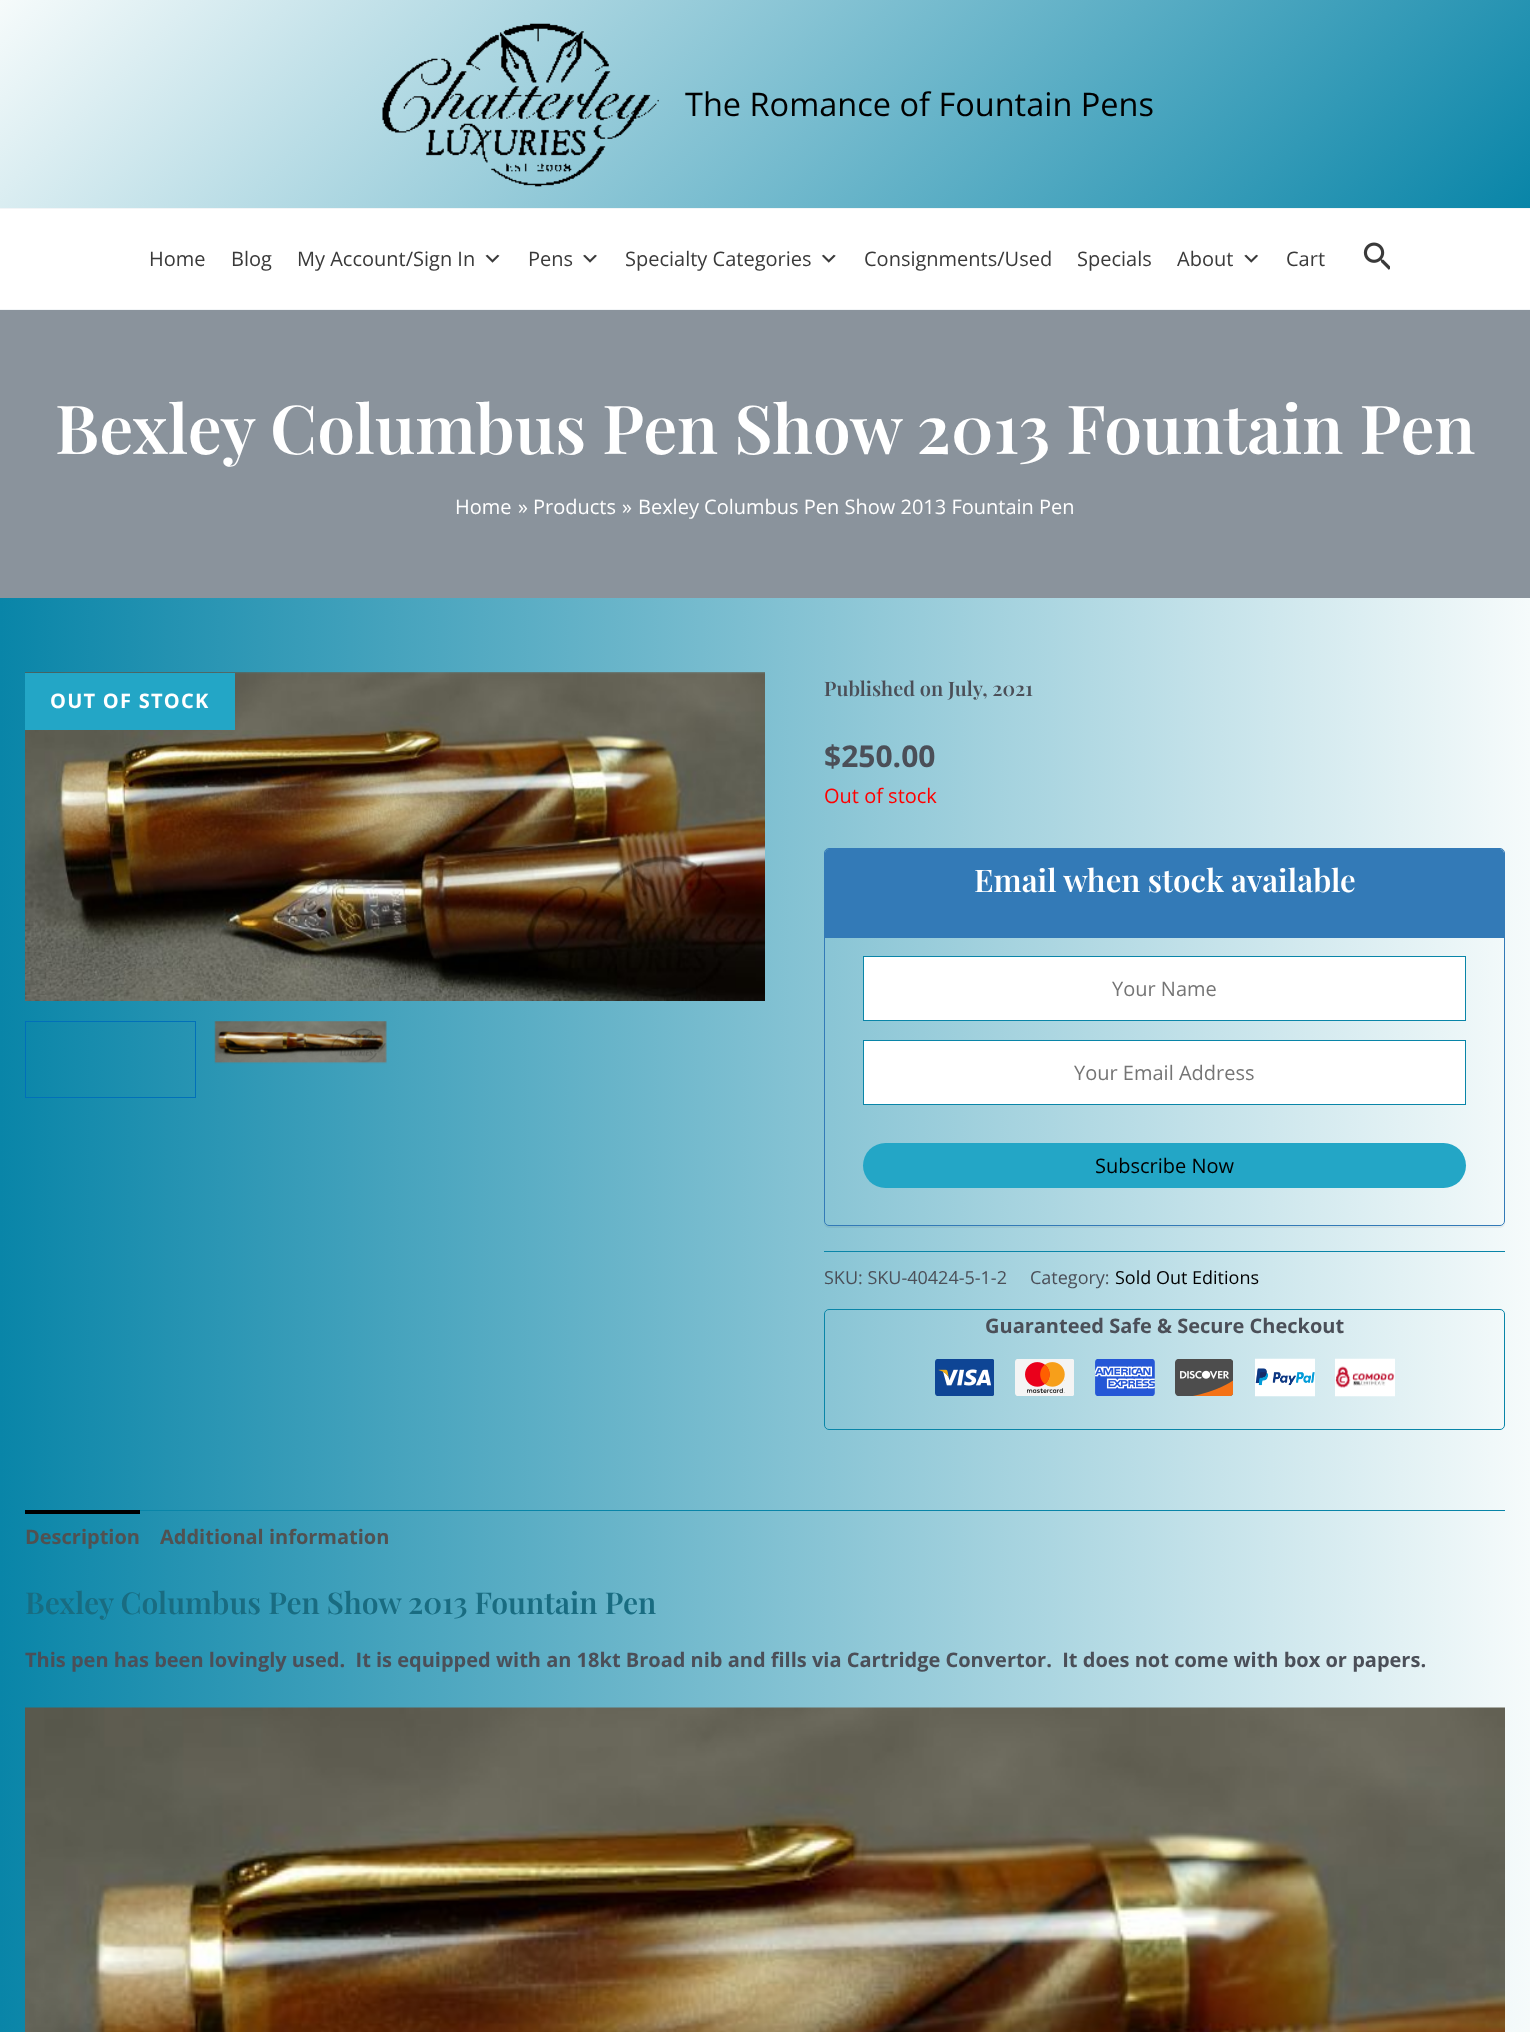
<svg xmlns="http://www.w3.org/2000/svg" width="1530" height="2032">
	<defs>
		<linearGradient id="g1" gradientUnits="userSpaceOnUse" x1="0" y1="1016" x2="1530" y2="1016"><stop offset="0" stop-color="#0985A8" /><stop offset="1" stop-color="#F6FBFB" /></linearGradient>
		<linearGradient id="g2" gradientUnits="userSpaceOnUse" x1="331" y1="-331" x2="1199" y2="538"><stop offset="0" stop-color="#F6FBFB" /><stop offset="1" stop-color="#0985A8" /></linearGradient>
		<clipPath id="clip1"><path d="M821 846H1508V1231H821ZM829 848H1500C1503 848 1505 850 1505 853V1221C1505 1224 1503 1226 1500 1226H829C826 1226 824 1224 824 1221V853C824 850 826 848 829 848Z" clip-rule="evenodd" /></clipPath>
	</defs>
	<rect width="100%" height="100%" fill="#FFFFFF" />
	<rect x="0" y="598" width="1530" height="1434" fill="url(#g1)" />
	<rect x="0" y="0" width="1530" height="208" fill="url(#g2)" />
	<rect x="0" y="208" width="1530" height="1" fill="#F2F5F7" />
	<image x="382" y="23" width="277" height="164" href="assets/img1.png" />
	<text x="685" y="116" font-family="Open Sans" font-size="32.5" fill="#000000">The Romance of Fountain Pens</text>
	<rect x="0" y="309" width="1530" height="1" fill="#F2F5F7" />
	<g font-family="Open Sans" font-size="20" fill="#3A3A3A">
		<text x="149" y="266">Home</text>
		<text x="231" y="266">Blog</text>
		<text x="297" y="266">My Account/Sign In</text>
	</g>
	<image x="485" y="254" width="15" height="9" href="assets/img2.png" />
	<text x="528" y="266" font-family="Open Sans" font-size="20" fill="#3A3A3A">Pens</text>
	<image x="583" y="254" width="14" height="9" href="assets/img3.png" />
	<text x="625" y="266" font-family="Open Sans" font-size="20" fill="#3A3A3A">Specialty Categories</text>
	<image x="821" y="254" width="15" height="9" href="assets/img4.png" />
	<g font-family="Open Sans" font-size="20" fill="#3A3A3A">
		<text x="864" y="266">Consignments/Used</text>
		<text x="1077" y="266">Specials</text>
		<text x="1177" y="266">About</text>
	</g>
	<image x="1244" y="254" width="15" height="9" href="assets/img5.png" />
	<text x="1286" y="266" font-family="Open Sans" font-size="20" fill="#3A3A3A">Cart</text>
	<image x="1363" y="242" width="27" height="28" href="assets/img6.png" />
	<rect x="0" y="310" width="1530" height="288" fill="#8A939C" />
	<text x="55" y="454" font-family="Playfair Display" font-size="67.5" font-weight="600" fill="#FFFFFF">Bexley Columbus Pen Show 2013 Fountain Pen</text>
	<g font-family="Open Sans" font-size="20" fill="#FFFFFF">
		<text x="455" y="514">Home</text>
		<text x="518" y="514">»</text>
		<text x="533" y="514">Products</text>
		<text x="622" y="514">»</text>
		<text x="638" y="514">Bexley Columbus Pen Show 2013 Fountain Pen</text>
	</g>
	<image x="25" y="672" width="740" height="329" href="assets/img7.png" />
	<rect x="25.5" y="1021.5" width="170" height="76" fill="none" stroke="#0170B9" />
	<image x="214" y="1021" width="173" height="43" href="assets/img8.png" />
	<text x="824" y="696" font-family="Playfair Display" font-size="20" font-weight="600" fill="#4B4F58">Published on July, 2021</text>
	<text x="824" y="767" font-family="Open Sans" font-size="30" font-weight="700" fill="#4B4F58">$250.00</text>
	<text x="824" y="803" font-family="Open Sans" font-size="20" fill="#FF0000">Out of stock</text>
	<g clip-path="url(#clip1)">
		<rect x="824" y="849" width="681" height="379" rx="5" fill="#000000" fill-opacity="0.05" filter="blur(0.5px)" />
	</g>
	<rect x="824.5" y="848.5" width="680" height="377" rx="4.5" fill="none" stroke="#337AB7" />
	<path d="M829 849H1500C1502 849 1504 851 1504 853V938H825V853C825 851 827 849 829 849Z" fill="#337AB7" />
	<text x="974" y="892" font-family="Playfair Display" font-size="31.25" font-weight="600" fill="#FFFFFF">Email when stock available</text>
	<rect x="863.5" y="956.5" width="602" height="64" fill="#FFFFFF" stroke="#0985A8" />
	<text x="1112" y="996" font-family="Open Sans" font-size="20" fill="#757575">Your Name</text>
	<rect x="863.5" y="1040.5" width="602" height="64" fill="#FFFFFF" stroke="#0985A8" />
	<text x="1074" y="1080" font-family="Open Sans" font-size="20" fill="#757575">Your Email Address</text>
	<rect x="863" y="1143" width="603" height="45" rx="22.5" fill="#23A6C6" />
	<text x="1095" y="1173" font-family="Open Sans" font-size="20" fill="#000000">Subscribe Now</text>
	<rect x="824" y="1251" width="681" height="1" fill="#0985A8" />
	<g font-family="Open Sans" font-size="18" fill="#4B4F58">
		<text x="824" y="1284">SKU: SKU-40424-5-1-2</text>
		<text x="1030" y="1284">Category:</text>
	</g>
	<text x="1115" y="1284" font-family="Open Sans" font-size="18" fill="#000000">Sold Out Editions</text>
	<rect x="824.5" y="1309.5" width="680" height="120" rx="4.5" fill="none" stroke="#0985A8" />
	<text x="985" y="1333" font-family="Open Sans" font-size="20" font-weight="700" fill="#4B4F58">Guaranteed Safe &amp; Secure Checkout</text>
	<image x="935" y="1359" width="59" height="37" href="assets/img9.png" />
	<image x="1015" y="1359" width="59" height="37" href="assets/img10.png" />
	<image x="1095" y="1359" width="60" height="37" href="assets/img11.png" />
	<image x="1175" y="1359" width="58" height="37" href="assets/img12.png" />
	<image x="1255" y="1358" width="60" height="39" href="assets/img13.png" />
	<image x="1335" y="1358" width="60" height="39" href="assets/img14.png" />
	<rect x="25" y="673" width="210" height="57" fill="#23A6C6" />
	<text x="50" y="708" font-family="Open Sans" font-size="20" font-weight="700" letter-spacing="1.25" fill="#FFFFFF">OUT OF STOCK</text>
	<rect x="140" y="1510" width="1365" height="1" fill="#0985A8" />
	<rect x="25" y="1510" width="115" height="4" fill="#000000" />
	<g font-family="Open Sans" font-size="20" font-weight="700" fill="#515151">
		<text x="25" y="1544">Description</text>
		<text x="160" y="1544">Additional information</text>
	</g>
	<text x="25" y="1614" font-family="Playfair Display" font-size="30" font-weight="600" fill="#196C81">Bexley Columbus Pen Show 2013 Fountain Pen</text>
	<text x="25" y="1667" font-family="Open Sans" font-size="20" font-weight="700" fill="#4B4F58" xml:space="preserve">This pen has been lovingly used.  It is equipped with an 18kt Broad nib and fills via Cartridge Convertor.  It does not come with box or papers.</text>
	<image x="25" y="1707" width="1480" height="325" href="assets/img15.png" />
</svg>
